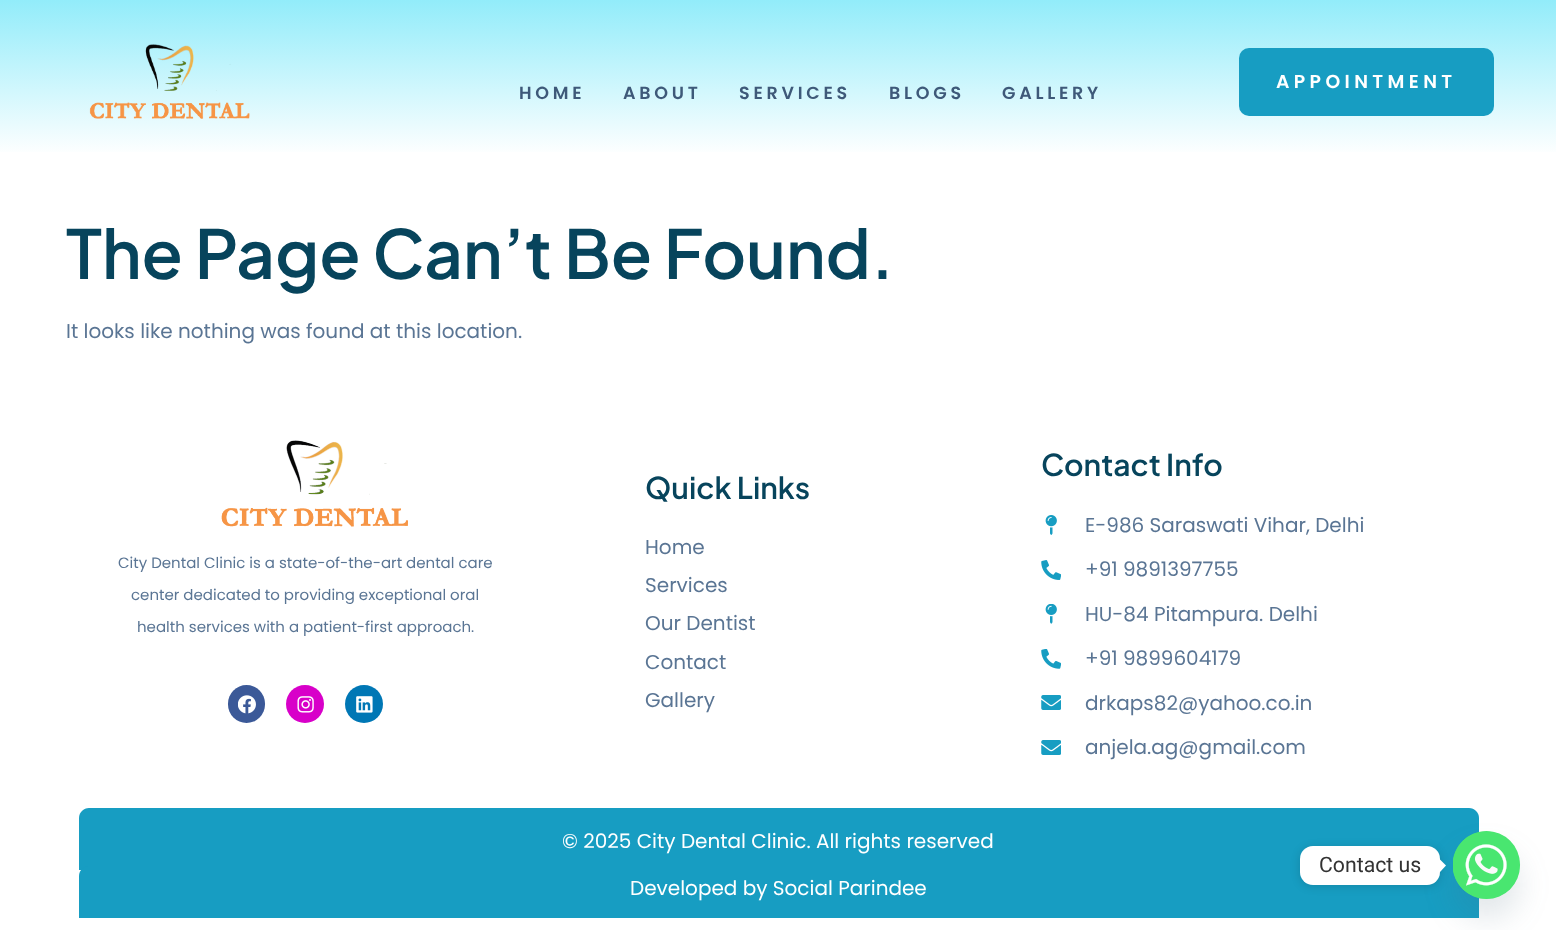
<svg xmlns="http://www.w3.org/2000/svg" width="1556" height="930">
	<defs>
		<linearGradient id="g1" gradientUnits="userSpaceOnUse" x1="778" y1="0" x2="778" y2="156"><stop offset="0" stop-color="#92ECFA" /><stop offset="1" stop-color="#FFFFFF" /></linearGradient>
	</defs>
	<rect width="100%" height="100%" fill="#FFFFFF" />
	<rect x="0" y="0" width="1556" height="152" fill="url(#g1)" />
	<image x="89" y="44" width="161" height="75" href="assets/img1.png" />
	<rect x="1239" y="48" width="255" height="68" rx="10" fill="#179DC2" />
	<text x="1276" y="88" font-family="Poppins" font-size="18.75" font-weight="600" letter-spacing="4.4" fill="#FFFFFF">APPOINTMENT</text>
	<g font-family="Poppins" font-size="17.5" font-weight="600" letter-spacing="3.75" fill="#3E5979">
		<text x="519" y="99">HOME</text>
		<text x="623" y="99">ABOUT</text>
		<text x="739" y="99">SERVICES</text>
		<text x="889" y="99">BLOGS</text>
		<text x="1002" y="99">GALLERY</text>
	</g>
	<text x="66" y="279" font-family="Plus Jakarta Sans" font-size="67.5" font-weight="600" fill="#07445C">The Page Can’t Be Found.</text>
	<text x="66" y="338" font-family="Poppins" font-size="20" fill="#5A7594">It looks like nothing was found at this location.</text>
	<image x="221" y="440" width="187" height="87" href="assets/img2.png" />
	<g font-family="Poppins" font-size="15" fill="#5A7594">
		<text x="118" y="568">City Dental Clinic is a state-of-the-art dental care</text>
		<text x="131" y="600">center dedicated to providing exceptional oral</text>
		<text x="137" y="632">health services with a patient-first approach.</text>
	</g>
	<rect x="228" y="685" width="37" height="38" rx="18.5" fill="#3B5998" />
	<image x="238" y="695" width="18" height="19" href="assets/img3.png" />
	<circle cx="305" cy="704" r="19" fill="#D800C9" />
	<image x="297" y="696" width="17" height="17" href="assets/img4.png" />
	<circle cx="364" cy="704" r="19" fill="#0077B5" />
	<image x="356" y="696" width="17" height="17" href="assets/img5.png" />
	<text x="645" y="499" font-family="Plus Jakarta Sans" font-size="30" font-weight="600" fill="#07445C">Quick Links</text>
	<g font-family="Poppins" font-size="20" fill="#5A7594">
		<text x="645" y="554">Home</text>
		<text x="645" y="592">Services</text>
		<text x="645" y="630">Our Dentist</text>
		<text x="645" y="669">Contact</text>
		<text x="645" y="707">Gallery</text>
	</g>
	<text x="1041" y="476" font-family="Plus Jakarta Sans" font-size="30" font-weight="600" fill="#07445C">Contact Info</text>
	<image x="1045" y="515" width="12" height="20" href="assets/img6.png" />
	<text x="1085" y="532" font-family="Poppins" font-size="20" fill="#5A7594">E-986 Saraswati Vihar, Delhi</text>
	<image x="1041" y="560" width="20" height="20" href="assets/img7.png" />
	<text x="1085" y="576" font-family="Poppins" font-size="20" fill="#5A7594">+91 9891397755</text>
	<image x="1045" y="604" width="12" height="20" href="assets/img8.png" />
	<text x="1085" y="621" font-family="Poppins" font-size="20" fill="#5A7594">HU-84 Pitampura. Delhi</text>
	<image x="1041" y="649" width="20" height="20" href="assets/img9.png" />
	<text x="1085" y="665" font-family="Poppins" font-size="20" fill="#5A7594">+91 9899604179</text>
	<image x="1041" y="695" width="20" height="15" href="assets/img10.png" />
	<text x="1085" y="710" font-family="Poppins" font-size="20" fill="#5A7594">drkaps82@yahoo.co.in</text>
	<image x="1041" y="740" width="20" height="15" href="assets/img10.png" />
	<text x="1085" y="754" font-family="Poppins" font-size="20" fill="#5A7594">anjela.ag@gmail.com</text>
	<path d="M89 808H1469C1474.5 808 1479 812.5 1479 818V870H79V818C79 812.5 83.5 808 89 808Z" fill="#179DC2" />
	<text x="562" y="848" font-family="Poppins" font-size="20" fill="#FFFFFF">© 2025 City Dental Clinic. All rights reserved</text>
	<path d="M89 866H1469C1474.5 866 1479 870.5 1479 876V918H79V876C79 870.5 83.5 866 89 866Z" fill="#179DC2" />
	<text x="630" y="895" font-family="Poppins" font-size="20" fill="#FFFFFF">Developed by Social Parindee</text>
	<rect x="1453" y="851" width="67" height="68" rx="33.5" fill="#49687E" fill-opacity="0.16" filter="blur(15px)" />
	<rect x="1453" y="831" width="67" height="68" rx="33.5" fill="#49E670" />
	<image x="1453" y="831" width="67" height="68" href="assets/img11.png" />
	<rect x="1300" y="848" width="140" height="38" rx="13" fill="#000000" fill-opacity="0.15" filter="blur(5px)" />
	<rect x="1300" y="846" width="140" height="39" rx="13" fill="#FFFFFF" />
	<text x="1319" y="872" font-family="Roboto" font-size="21.25" fill="#333333">Contact us</text>
	<path d="M1440 872V859.5L1446 865.5Z" fill="#FFFFFF" />
</svg>
